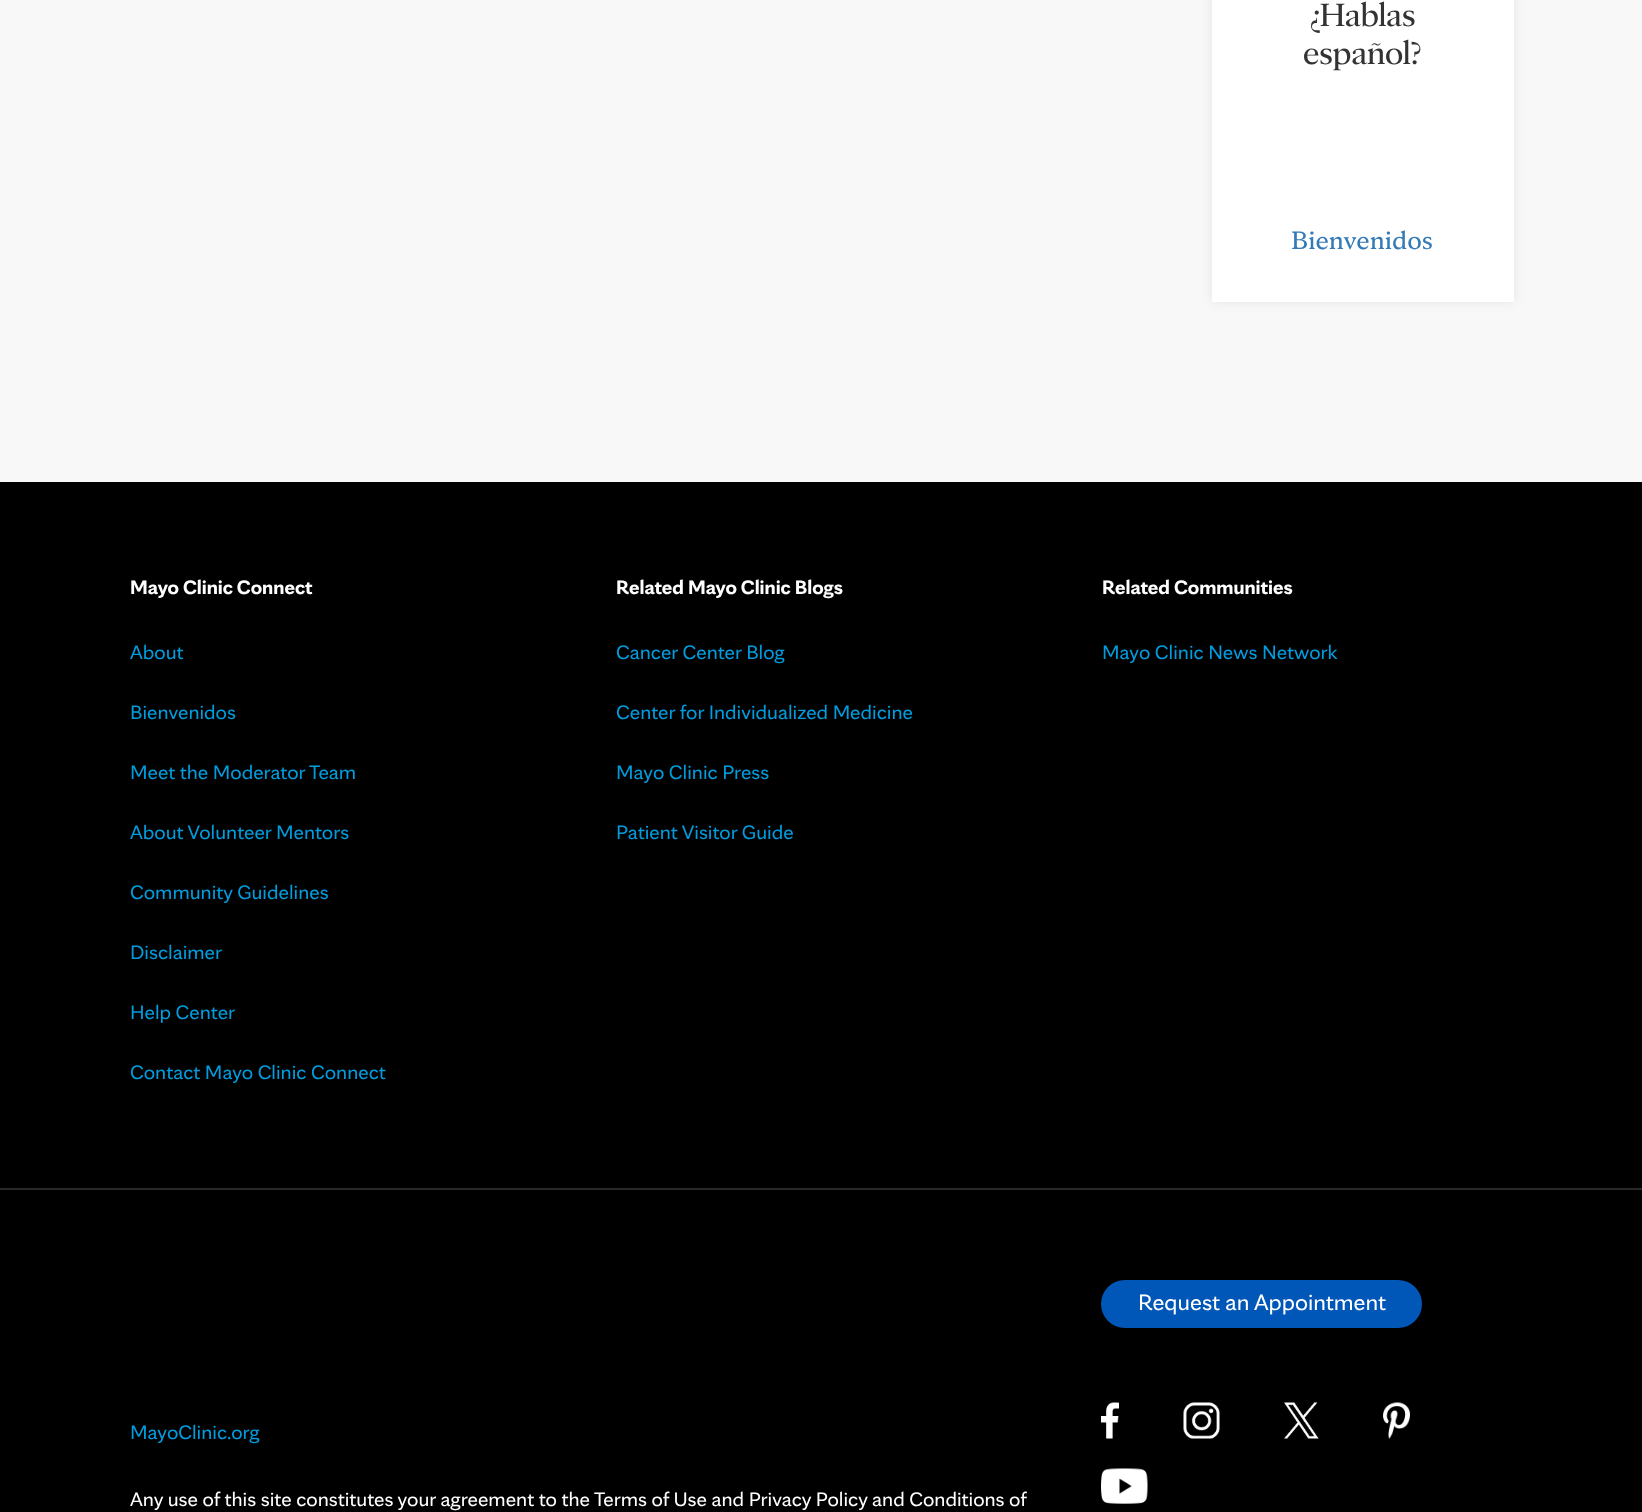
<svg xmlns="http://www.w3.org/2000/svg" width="1642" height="1512">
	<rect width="100%" height="100%" fill="#F8F8F8" />
	<rect x="1212" y="-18" width="302" height="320" fill="#000000" fill-opacity="0.08" filter="blur(6px)" />
	<rect x="1212" y="0" width="302" height="302" fill="#FFFFFF" />
	<g font-family="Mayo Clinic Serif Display" font-size="34.5" fill="#333333">
		<text x="1310" y="26">¿Hablas</text>
		<text x="1303" y="64">español?</text>
	</g>
	<text x="1291" y="249" font-family="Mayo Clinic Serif" font-size="27" fill="#337AB7">Bienvenidos</text>
	<rect x="0" y="482" width="1642" height="1030" fill="#000000" />
	<text x="130" y="594" font-family="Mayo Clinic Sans" font-size="21" font-weight="700" fill="#FFFFFF">Mayo Clinic Connect</text>
	<g font-family="Mayo Clinic Sans" font-size="21" fill="#009CDE">
		<text x="130" y="659">About</text>
		<text x="130" y="719">Bienvenidos</text>
		<text x="130" y="779">Meet the Moderator Team</text>
		<text x="130" y="839">About Volunteer Mentors</text>
		<text x="130" y="899">Community Guidelines</text>
		<text x="130" y="959">Disclaimer</text>
		<text x="130" y="1019">Help Center</text>
		<text x="130" y="1079">Contact Mayo Clinic Connect</text>
	</g>
	<text x="616" y="594" font-family="Mayo Clinic Sans" font-size="21" font-weight="700" fill="#FFFFFF">Related Mayo Clinic Blogs</text>
	<g font-family="Mayo Clinic Sans" font-size="21" fill="#009CDE">
		<text x="616" y="659">Cancer Center Blog</text>
		<text x="616" y="719">Center for Individualized Medicine</text>
		<text x="616" y="779">Mayo Clinic Press</text>
		<text x="616" y="839">Patient Visitor Guide</text>
	</g>
	<text x="1102" y="594" font-family="Mayo Clinic Sans" font-size="21" font-weight="700" fill="#FFFFFF">Related Communities</text>
	<text x="1102" y="659" font-family="Mayo Clinic Sans" font-size="21" fill="#009CDE">Mayo Clinic News Network</text>
	<rect x="0" y="1188" width="1642" height="2" fill="#292929" />
	<rect x="1101" y="1280" width="321" height="48" rx="24" fill="#0057B8" />
	<text x="1138" y="1310" font-family="Mayo Clinic Sans" font-size="24" fill="#FFFFFF">Request an Appointment</text>
	<image x="1101" y="1402" width="18" height="37" href="assets/img1.png" />
	<image x="1183" y="1402" width="37" height="37" href="assets/img2.png" />
	<image x="1284" y="1402" width="35" height="37" href="assets/img3.png" />
	<image x="1383" y="1402" width="27" height="37" href="assets/img4.png" />
	<image x="1101" y="1468" width="47" height="36" href="assets/img5.png" />
	<text x="130" y="1439" font-family="Mayo Clinic Sans" font-size="21" fill="#009CDE">MayoClinic.org</text>
	<text x="130" y="1506" font-family="Mayo Clinic Sans" font-size="21" fill="#FFFFFF">Any use of this site constitutes your agreement to the Terms of Use and Privacy Policy and Conditions of</text>
</svg>
